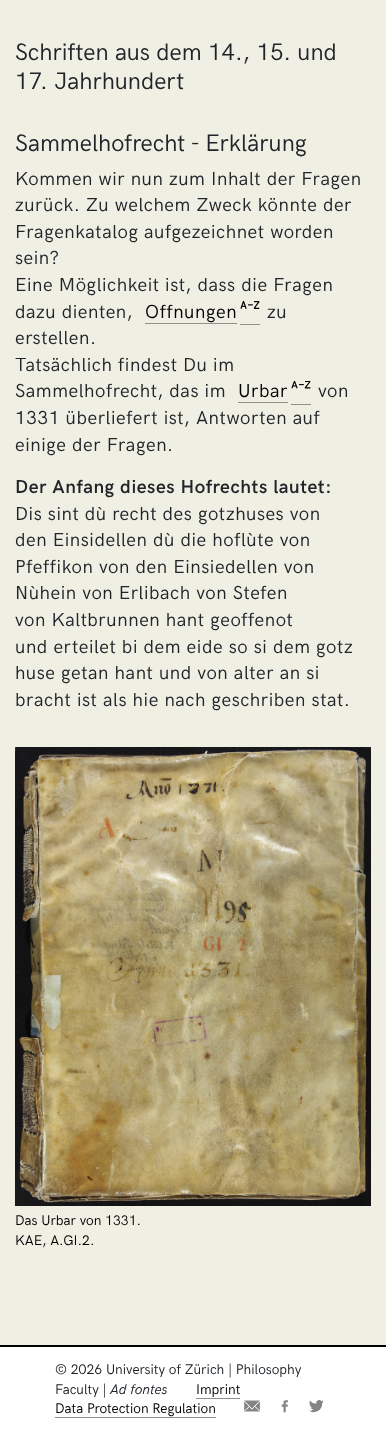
<svg xmlns="http://www.w3.org/2000/svg" width="386" height="1443">
	<rect width="100%" height="100%" fill="#FFFFFF" />
	<rect x="0" y="0" width="386" height="1345" fill="#F0EFE4" />
	<g font-family="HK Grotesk" font-size="24" fill="#212529">
		<text x="15" y="60">Schriften aus dem 14., 15. und</text>
		<text x="15" y="89">17. Jahrhundert</text>
		<text x="15" y="151">Sammelhofrecht - Erklärung</text>
	</g>
	<g font-family="HK Grotesk" font-size="19" letter-spacing="0.55" fill="#212529">
		<text x="15" y="185">Kommen wir nun zum Inhalt der Fragen</text>
		<text x="15" y="211">zurück. Zu welchem Zweck könnte der</text>
		<text x="15" y="238">Fragenkatalog aufgezeichnet worden</text>
		<text x="15" y="264">sein?</text>
		<text x="15" y="291">Eine Möglichkeit ist, dass die Fragen</text>
		<text x="15" y="318">dazu dienten,</text>
	</g>
	<rect x="145" y="323" width="92" height="1" fill="#909090" />
	<rect x="240" y="324" width="20" height="1" fill="#909090" />
	<text x="145" y="318" font-family="HK Grotesk" font-size="19" letter-spacing="0.55" fill="#000000">Offnungen</text>
	<image x="240" y="301" width="20" height="8" href="assets/img1.png" />
	<g font-family="HK Grotesk" font-size="19" letter-spacing="0.55" fill="#212529">
		<text x="267" y="318">zu</text>
		<text x="15" y="344">erstellen.</text>
		<text x="15" y="371">Tatsächlich findest Du im</text>
		<text x="15" y="397">Sammelhofrecht, das im</text>
	</g>
	<rect x="238" y="402" width="50" height="1" fill="#909090" />
	<rect x="291" y="404" width="20" height="1" fill="#909090" />
	<text x="238" y="397" font-family="HK Grotesk" font-size="19" letter-spacing="0.55" fill="#000000">Urbar</text>
	<image x="291" y="381" width="20" height="8" href="assets/img2.png" />
	<g font-family="HK Grotesk" font-size="19" letter-spacing="0.55" fill="#212529">
		<text x="318" y="397">von</text>
		<text x="15" y="424">1331 überliefert ist, Antworten auf</text>
		<text x="15" y="451">einige der Fragen.</text>
	</g>
	<text x="15" y="493" font-family="HK Grotesk" font-size="19" font-weight="600" letter-spacing="0.55" fill="#212529">Der Anfang dieses Hofrechts lautet:</text>
	<g font-family="HK Grotesk" font-size="19" letter-spacing="0.55" fill="#212529">
		<text x="15" y="520">Dis sint dù recht des gotzhuses von</text>
		<text x="15" y="546">den Einsidellen dù die hoflùte von</text>
		<text x="15" y="573">Pfeffikon von den Einsiedellen von</text>
		<text x="15" y="599">Nùhein von Erlibach von Stefen</text>
		<text x="15" y="626">von Kaltbrunnen hant geoffenot</text>
		<text x="15" y="653">und erteilet bi dem eide so si dem gotz</text>
		<text x="15" y="679">huse getan hant und von alter an si</text>
		<text x="15" y="706">bracht ist als hie nach geschriben stat.</text>
	</g>
	<image x="15" y="747" width="356" height="459" href="assets/img3.png" />
	<g font-family="HK Grotesk" font-size="14" fill="#000000">
		<text x="15" y="1225">Das Urbar von 1331.</text>
		<text x="15" y="1245">KAE, A.GI.2.</text>
	</g>
	<rect x="0" y="1345" width="386" height="2" fill="#000000" />
	<g font-family="HK Grotesk" font-size="14" fill="#212529">
		<text x="55" y="1374">© 2026 University of Zürich | Philosophy</text>
		<text x="55" y="1394">Faculty |</text>
	</g>
	<text x="196" y="1394" font-family="HK Grotesk" font-size="14" fill="#000000">Imprint</text>
	<rect x="196" y="1398" width="44" height="1" fill="#909090" />
	<text x="55" y="1413" font-family="HK Grotesk" font-size="14" fill="#000000">Data Protection Regulation</text>
	<rect x="55" y="1417" width="161" height="1" fill="#909090" />
	<text x="110" y="1394" font-family="HK Grotesk" font-size="14" font-style="italic" fill="#212529">Ad fontes</text>
	<image x="244" y="1400" width="16" height="12" href="assets/img4.png" />
	<image x="281" y="1400" width="7" height="13" href="assets/img5.png" />
	<image x="309" y="1400" width="15" height="13" href="assets/img6.png" />
</svg>
